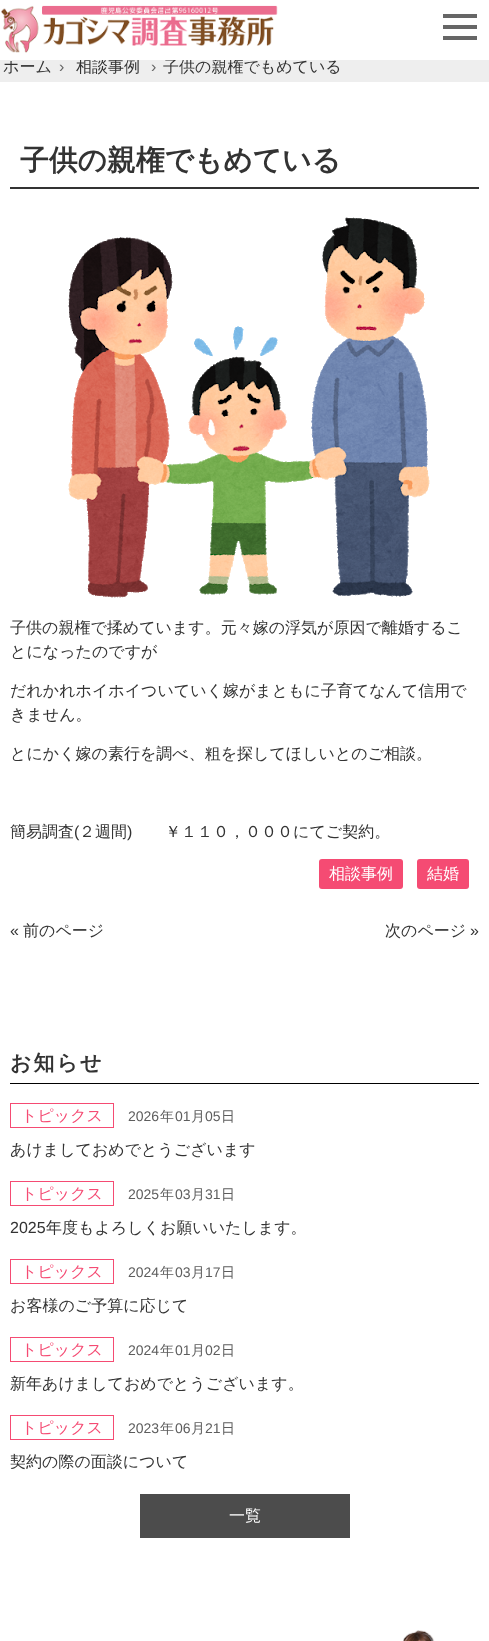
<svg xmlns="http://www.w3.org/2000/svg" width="489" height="1641">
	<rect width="100%" height="100%" fill="#FFFFFF" />
	<rect x="0" y="60" width="489" height="22" fill="#EEEEEE" />
	<g font-family="WenQuanYi Zen Hei" font-size="16" font-weight="500" fill="#333333">
		<text x="76" y="72">相談事例</text>
		<text x="163" y="72">子供の親権でもめている</text>
	</g>
	<rect x="79" y="58" width="158" height="2" fill="#FFFFFF" />
	<image x="1" y="5" width="277" height="48" href="assets/img1.png" />
	<rect x="443" y="14" width="34" height="4" fill="#666666" />
	<rect x="443" y="25" width="34" height="4" fill="#666666" />
	<rect x="443" y="36" width="34" height="4" fill="#666666" />
	<text x="3" y="72" font-family="WenQuanYi Zen Hei" font-size="16" font-weight="500" fill="#333333">ホーム</text>
	<g font-family="Liberation Sans" font-size="16" fill="#666666">
		<text x="59" y="72">›</text>
		<text x="151" y="72">›</text>
	</g>
	<rect x="10" y="187" width="469" height="2" fill="#333333" />
	<text x="20" y="170" font-family="WenQuanYi Zen Hei" font-size="28.75" font-weight="700" fill="#333333">子供の親権でもめている</text>
	<image x="68" y="217" width="362" height="381" href="assets/img2.png" />
	<g font-family="WenQuanYi Zen Hei" font-size="16" font-weight="500" fill="#333333">
		<text x="10" y="633">子供の親権で揉めています。元々嫁の浮気が原因で離婚するこ</text>
		<text x="10" y="657">とになったのですが</text>
		<text x="10" y="696">だれかれホイホイついていく嫁がまともに子育てなんて信用で</text>
		<text x="10" y="720">きません。</text>
		<text x="10" y="759">とにかく嫁の素行を調べ、粗を探してほしいとのご相談。</text>
		<text x="10" y="837">簡易調査</text>
	</g>
	<text x="74" y="837" font-family="Liberation Sans" font-size="16" fill="#333333">(</text>
	<text x="79" y="837" font-family="WenQuanYi Zen Hei" font-size="16" font-weight="500" fill="#333333">２週間</text>
	<text x="127" y="837" font-family="Liberation Sans" font-size="16" fill="#333333">)</text>
	<text x="165" y="837" font-family="WenQuanYi Zen Hei" font-size="16" font-weight="500" fill="#333333">￥１１０，０００にてご契約。</text>
	<rect x="319" y="859" width="84" height="30" rx="3" fill="#F54B73" />
	<text x="329" y="879" font-family="WenQuanYi Zen Hei" font-size="16" font-weight="500" fill="#FFFFFF">相談事例</text>
	<rect x="417" y="859" width="52" height="30" rx="3" fill="#F54B73" />
	<text x="427" y="879" font-family="WenQuanYi Zen Hei" font-size="16" font-weight="500" fill="#FFFFFF">結婚</text>
	<text x="10" y="936" font-family="Liberation Sans" font-size="16" fill="#333333">«</text>
	<g font-family="WenQuanYi Zen Hei" font-size="16" font-weight="500" fill="#333333">
		<text x="23" y="936">前のページ</text>
		<text x="385" y="936">次のページ</text>
	</g>
	<text x="470" y="936" font-family="Liberation Sans" font-size="16" fill="#333333">»</text>
	<rect x="10" y="1083" width="469" height="1" fill="#000000" />
	<text x="10" y="1070" font-family="WenQuanYi Zen Hei" font-size="21" font-weight="700" letter-spacing="2" fill="#333333">お知らせ</text>
	<rect x="10.5" y="1103.5" width="103" height="24" fill="none" stroke="#F54B73" />
	<text x="21" y="1121" font-family="WenQuanYi Zen Hei" font-size="16" font-weight="500" fill="#F54B73">トピックス</text>
	<text x="128" y="1121" font-family="Liberation Sans" font-size="14" fill="#5D5D5D">2026</text>
	<text x="160" y="1121" font-family="WenQuanYi Zen Hei" font-size="14" font-weight="500" fill="#5D5D5D">年</text>
	<text x="175" y="1121" font-family="Liberation Sans" font-size="14" fill="#5D5D5D">01</text>
	<text x="191" y="1121" font-family="WenQuanYi Zen Hei" font-size="14" font-weight="500" fill="#5D5D5D">月</text>
	<text x="205" y="1121" font-family="Liberation Sans" font-size="14" fill="#5D5D5D">05</text>
	<text x="221" y="1121" font-family="WenQuanYi Zen Hei" font-size="14" font-weight="500" fill="#5D5D5D">日</text>
	<text x="10" y="1155" font-family="WenQuanYi Zen Hei" font-size="16" font-weight="500" fill="#333333">あけましておめでとうございます</text>
	<rect x="10.5" y="1181.5" width="103" height="24" fill="none" stroke="#F54B73" />
	<text x="21" y="1199" font-family="WenQuanYi Zen Hei" font-size="16" font-weight="500" fill="#F54B73">トピックス</text>
	<text x="128" y="1199" font-family="Liberation Sans" font-size="14" fill="#5D5D5D">2025</text>
	<text x="160" y="1199" font-family="WenQuanYi Zen Hei" font-size="14" font-weight="500" fill="#5D5D5D">年</text>
	<text x="175" y="1199" font-family="Liberation Sans" font-size="14" fill="#5D5D5D">03</text>
	<text x="191" y="1199" font-family="WenQuanYi Zen Hei" font-size="14" font-weight="500" fill="#5D5D5D">月</text>
	<text x="205" y="1199" font-family="Liberation Sans" font-size="14" fill="#5D5D5D">31</text>
	<text x="221" y="1199" font-family="WenQuanYi Zen Hei" font-size="14" font-weight="500" fill="#5D5D5D">日</text>
	<text x="10" y="1233" font-family="Liberation Sans" font-size="16" fill="#333333">2025</text>
	<text x="46" y="1233" font-family="WenQuanYi Zen Hei" font-size="16" font-weight="500" fill="#333333">年度もよろしくお願いいたします。</text>
	<rect x="10.5" y="1259.5" width="103" height="24" fill="none" stroke="#F54B73" />
	<text x="21" y="1277" font-family="WenQuanYi Zen Hei" font-size="16" font-weight="500" fill="#F54B73">トピックス</text>
	<text x="128" y="1277" font-family="Liberation Sans" font-size="14" fill="#5D5D5D">2024</text>
	<text x="160" y="1277" font-family="WenQuanYi Zen Hei" font-size="14" font-weight="500" fill="#5D5D5D">年</text>
	<text x="175" y="1277" font-family="Liberation Sans" font-size="14" fill="#5D5D5D">03</text>
	<text x="191" y="1277" font-family="WenQuanYi Zen Hei" font-size="14" font-weight="500" fill="#5D5D5D">月</text>
	<text x="205" y="1277" font-family="Liberation Sans" font-size="14" fill="#5D5D5D">17</text>
	<text x="221" y="1277" font-family="WenQuanYi Zen Hei" font-size="14" font-weight="500" fill="#5D5D5D">日</text>
	<text x="10" y="1311" font-family="WenQuanYi Zen Hei" font-size="16" font-weight="500" fill="#333333">お客様のご予算に応じて</text>
	<rect x="10.5" y="1337.5" width="103" height="24" fill="none" stroke="#F54B73" />
	<text x="21" y="1355" font-family="WenQuanYi Zen Hei" font-size="16" font-weight="500" fill="#F54B73">トピックス</text>
	<text x="128" y="1355" font-family="Liberation Sans" font-size="14" fill="#5D5D5D">2024</text>
	<text x="160" y="1355" font-family="WenQuanYi Zen Hei" font-size="14" font-weight="500" fill="#5D5D5D">年</text>
	<text x="175" y="1355" font-family="Liberation Sans" font-size="14" fill="#5D5D5D">01</text>
	<text x="191" y="1355" font-family="WenQuanYi Zen Hei" font-size="14" font-weight="500" fill="#5D5D5D">月</text>
	<text x="205" y="1355" font-family="Liberation Sans" font-size="14" fill="#5D5D5D">02</text>
	<text x="221" y="1355" font-family="WenQuanYi Zen Hei" font-size="14" font-weight="500" fill="#5D5D5D">日</text>
	<text x="10" y="1389" font-family="WenQuanYi Zen Hei" font-size="16" font-weight="500" fill="#333333">新年あけましておめでとうございます。</text>
	<rect x="10.5" y="1415.5" width="103" height="24" fill="none" stroke="#F54B73" />
	<text x="21" y="1433" font-family="WenQuanYi Zen Hei" font-size="16" font-weight="500" fill="#F54B73">トピックス</text>
	<text x="128" y="1433" font-family="Liberation Sans" font-size="14" fill="#5D5D5D">2023</text>
	<text x="160" y="1433" font-family="WenQuanYi Zen Hei" font-size="14" font-weight="500" fill="#5D5D5D">年</text>
	<text x="175" y="1433" font-family="Liberation Sans" font-size="14" fill="#5D5D5D">06</text>
	<text x="191" y="1433" font-family="WenQuanYi Zen Hei" font-size="14" font-weight="500" fill="#5D5D5D">月</text>
	<text x="205" y="1433" font-family="Liberation Sans" font-size="14" fill="#5D5D5D">21</text>
	<text x="221" y="1433" font-family="WenQuanYi Zen Hei" font-size="14" font-weight="500" fill="#5D5D5D">日</text>
	<text x="10" y="1467" font-family="WenQuanYi Zen Hei" font-size="16" font-weight="500" fill="#333333">契約の際の面談について</text>
	<rect x="140" y="1494" width="210" height="44" fill="#4C4C4C" />
	<text x="229" y="1521" font-family="WenQuanYi Zen Hei" font-size="16" font-weight="500" fill="#FFFFFF">一覧</text>
	<image x="403" y="1630" width="32" height="11" href="assets/img3.png" />
</svg>
